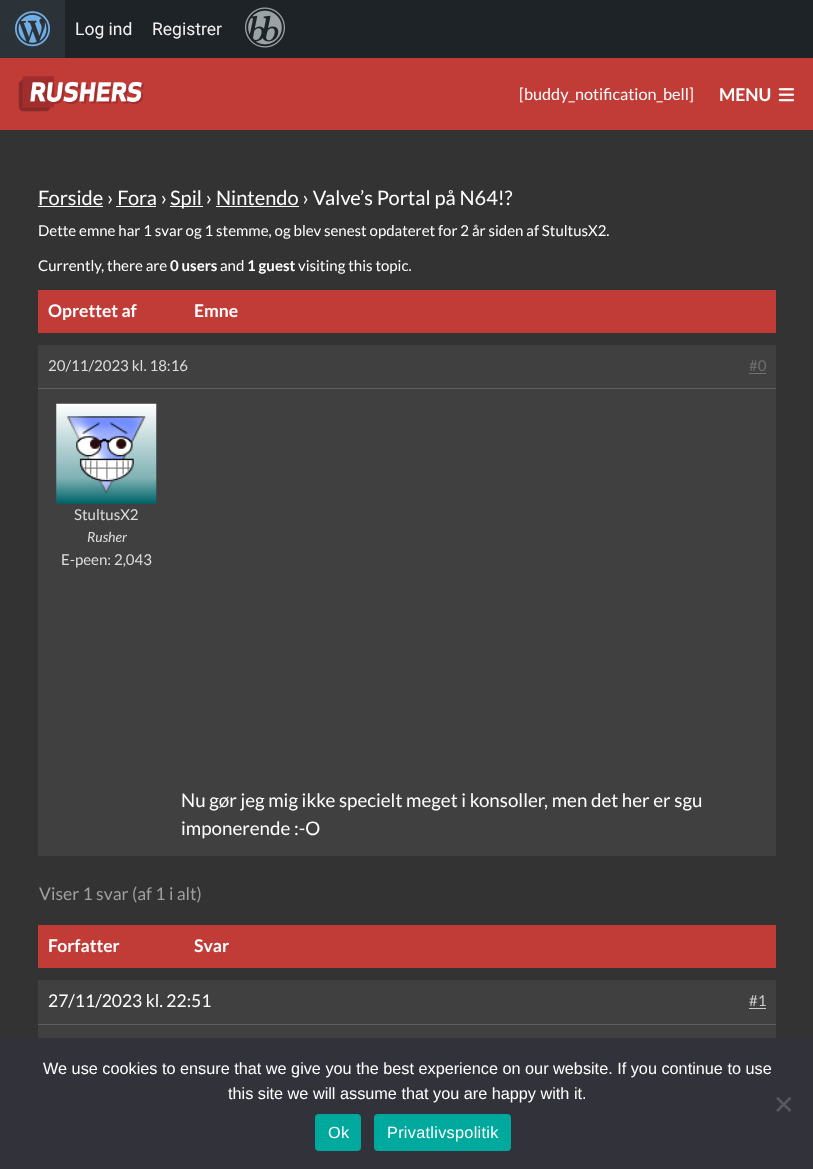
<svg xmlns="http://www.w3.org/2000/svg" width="813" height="1169">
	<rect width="100%" height="100%" fill="#333333" />
	<rect x="65" y="0" width="748" height="58" fill="#1D2327" />
	<rect x="0" y="0" width="65" height="58" fill="#2C3338" />
	<image x="15" y="11" width="35" height="36" href="assets/img1.png" />
	<g font-family="Roboto" font-size="17.5" fill="#F0F0F1">
		<text x="75" y="35">Log ind</text>
		<text x="152" y="35">Registrer</text>
	</g>
	<image x="245" y="7" width="40" height="41" href="assets/img2.png" />
	<rect x="0" y="58" width="813" height="72" fill="#C13B37" />
	<image x="18" y="76" width="126" height="36" href="assets/img3.png" />
	<text x="519" y="100" font-family="Lato" font-size="16.25" fill="#FFFFFF">[buddy_notification_bell]</text>
	<text x="719" y="101" font-family="Lato" font-size="17.5" font-weight="700" fill="#FFFFFF">MENU</text>
	<image x="778" y="88" width="17" height="14" href="assets/img4.png" />
	<text x="38" y="205" font-family="Lato" font-size="20" fill="#FFFFFF">Forside › Fora ›</text>
	<rect x="38" y="206" width="65" height="1" fill="#FFFFFF" />
	<rect x="170" y="206" width="33" height="1" fill="#FFFFFF" />
	<text x="170" y="205" font-family="Lato" font-size="20" fill="#FFFFFF">Spil › Nintendo › Valve’s Portal på N64!?</text>
	<rect x="116" y="206" width="40" height="1" fill="#FFFFFF" />
	<rect x="216" y="206" width="83" height="1" fill="#FFFFFF" />
	<g font-family="Lato" font-size="15" fill="#FFFFFF">
		<text x="38" y="236">Dette emne har 1 svar og 1 stemme, og blev senest opdateret for 2 år siden af StultusX2.</text>
		<text x="38" y="271">Currently, there are</text>
	</g>
	<text x="170" y="271" font-family="Lato" font-size="15" font-weight="700" fill="#FFFFFF">0 users</text>
	<text x="220" y="271" font-family="Lato" font-size="15" fill="#FFFFFF">and</text>
	<text x="247" y="271" font-family="Lato" font-size="15" font-weight="700" fill="#FFFFFF">1 guest</text>
	<text x="298" y="271" font-family="Lato" font-size="15" fill="#FFFFFF">visiting this topic.</text>
	<rect x="38" y="345" width="738" height="511" fill="#404040" />
	<rect x="38" y="290" width="738" height="43" fill="#C13B37" />
	<g font-family="Lato" font-size="17.5" font-weight="700" fill="#FFFFFF">
		<text x="48" y="317">Oprettet af</text>
		<text x="194" y="317">Emne</text>
	</g>
	<rect x="38" y="388" width="738" height="1" fill="#606060" />
	<text x="48" y="371" font-family="Lato" font-size="15" fill="#DDDDDD">20/11/2023 kl. 18:16</text>
	<text x="749" y="371" font-family="Lato" font-size="15" fill="#707070">#0</text>
	<rect x="749" y="373" width="17" height="1" fill="#707070" />
	<image x="56" y="403" width="101" height="101" href="assets/img5.png" />
	<text x="74" y="520" font-family="Lato" font-size="15" fill="#DDDDDD">StultusX2</text>
	<text x="87" y="542" font-family="Lato" font-size="14" font-style="italic" fill="#DDDDDD">Rusher</text>
	<text x="61" y="565" font-family="Lato" font-size="15" fill="#DDDDDD">E-peen: 2,043</text>
	<g font-family="Lato" font-size="18.75" fill="#FFFFFF">
		<text x="181" y="807">Nu gør jeg mig ikke specielt meget i konsoller, men det her er sgu</text>
		<text x="181" y="835">imponerende :-O</text>
	</g>
	<text x="39" y="900" font-family="Lato" font-size="17.5" fill="#9F9F9F">Viser 1 svar (af 1 i alt)</text>
	<rect x="38" y="925" width="738" height="43" fill="#C13B37" />
	<g font-family="Lato" font-size="17.5" font-weight="700" fill="#FFFFFF">
		<text x="48" y="952">Forfatter</text>
		<text x="194" y="952">Svar</text>
	</g>
	<rect x="38" y="980" width="738" height="58" fill="#404040" />
	<rect x="38" y="1024" width="738" height="1" fill="#606060" />
	<text x="48" y="1007" font-family="Lato" font-size="17.5" fill="#FFFFFF">27/11/2023 kl. 22:51</text>
	<text x="749" y="1006" font-family="Lato" font-size="15" fill="#CBCBCB">#1</text>
	<rect x="749" y="1008" width="17" height="1" fill="#CBCBCB" />
	<rect x="0" y="1038" width="813" height="131" fill="#32323A" />
	<g font-family="Liberation Sans" font-size="16.25" fill="#FFFFFF">
		<text x="43" y="1074">We use cookies to ensure that we give you the best experience on our website. If you continue to use</text>
		<text x="228" y="1099">this site we will assume that you are happy with it.</text>
	</g>
	<path d="M789.5 1097L791.5 1098.5L778 1112L776 1110Z" fill="#59595D" />
	<path d="M776 1098.5L778 1097L791.5 1110L789.5 1112Z" fill="#59595D" />
	<rect x="315" y="1114" width="46" height="37" rx="4" fill="#00A99D" />
	<text x="328" y="1138" font-family="Liberation Sans" font-size="16.25" letter-spacing="0.3" fill="#FFFFFF">Ok</text>
	<rect x="374" y="1114" width="137" height="37" rx="4" fill="#00A99D" />
	<text x="387" y="1138" font-family="Liberation Sans" font-size="16.25" letter-spacing="0.3" fill="#FFFFFF">Privatlivspolitik</text>
</svg>
